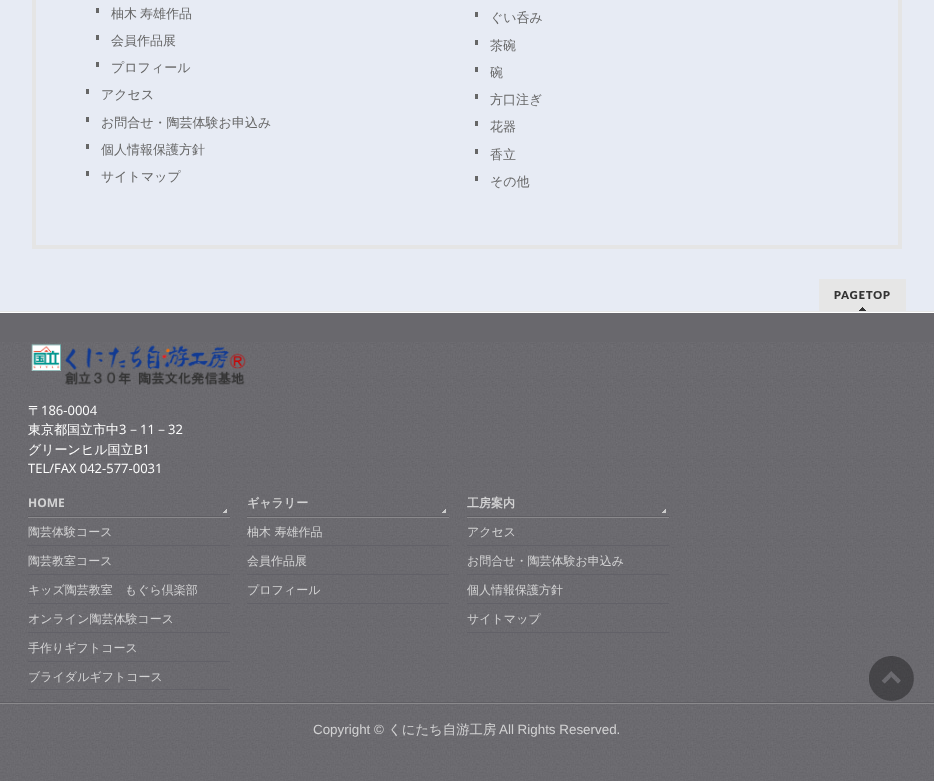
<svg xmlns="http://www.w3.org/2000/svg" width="934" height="781">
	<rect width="100%" height="100%" fill="#E7EBF4" />
	<rect x="34" y="-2" width="866" height="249" fill="none" stroke="#E5E5E5" stroke-width="4" />
	<rect x="96" y="8" width="3" height="5" fill="#666666" />
	<text x="111" y="18" word-spacing="-1" font-family="WenQuanYi Zen Hei" font-size="13" font-weight="500" fill="#666666">柚木 寿雄作品</text>
	<rect x="96" y="35" width="3" height="5" fill="#666666" />
	<text x="111" y="45" font-family="WenQuanYi Zen Hei" font-size="13" font-weight="500" fill="#666666">会員作品展</text>
	<rect x="96" y="62" width="3" height="5" fill="#666666" />
	<text x="111" y="72" font-family="WenQuanYi Zen Hei" font-size="13" font-weight="500" fill="#666666">プロフィール</text>
	<rect x="86" y="89" width="3" height="5" fill="#666666" />
	<text x="101" y="99" font-family="WenQuanYi Zen Hei" font-size="13" font-weight="500" fill="#666666">アクセス</text>
	<rect x="86" y="117" width="3" height="5" fill="#666666" />
	<text x="101" y="127" font-family="WenQuanYi Zen Hei" font-size="13" font-weight="500" fill="#666666">お問合せ・陶芸体験お申込み</text>
	<rect x="86" y="144" width="3" height="5" fill="#666666" />
	<text x="101" y="154" font-family="WenQuanYi Zen Hei" font-size="13" font-weight="500" fill="#666666">個人情報保護方針</text>
	<rect x="86" y="171" width="3" height="5" fill="#666666" />
	<text x="101" y="181" font-family="WenQuanYi Zen Hei" font-size="13" font-weight="500" fill="#666666">サイトマップ</text>
	<rect x="475" y="12" width="3" height="5" fill="#666666" />
	<text x="490" y="22" font-family="WenQuanYi Zen Hei" font-size="13" font-weight="500" fill="#666666">ぐい呑み</text>
	<rect x="475" y="40" width="3" height="5" fill="#666666" />
	<text x="490" y="50" font-family="WenQuanYi Zen Hei" font-size="13" font-weight="500" fill="#666666">茶碗</text>
	<rect x="475" y="67" width="3" height="5" fill="#666666" />
	<text x="490" y="77" font-family="WenQuanYi Zen Hei" font-size="13" font-weight="500" fill="#666666">碗</text>
	<rect x="475" y="94" width="3" height="5" fill="#666666" />
	<text x="490" y="104" font-family="WenQuanYi Zen Hei" font-size="13" font-weight="500" fill="#666666">方口注ぎ</text>
	<rect x="475" y="121" width="3" height="5" fill="#666666" />
	<text x="490" y="131" font-family="WenQuanYi Zen Hei" font-size="13" font-weight="500" fill="#666666">花器</text>
	<rect x="475" y="149" width="3" height="5" fill="#666666" />
	<text x="490" y="159" font-family="WenQuanYi Zen Hei" font-size="13" font-weight="500" fill="#666666">香立</text>
	<rect x="475" y="176" width="3" height="5" fill="#666666" />
	<text x="490" y="186" font-family="WenQuanYi Zen Hei" font-size="13" font-weight="500" fill="#666666">その他</text>
	<rect x="819" y="279" width="87" height="32" fill="#E6E6E6" />
	<image x="859" y="307" width="7" height="4" href="assets/img1.png" />
	<text x="834" y="299" font-family="Lato" font-size="11" font-weight="900" letter-spacing="1" fill="#333333">PAGETOP</text>
	<rect x="0" y="313" width="934" height="29" fill="#69686D" />
	<rect x="0" y="312" width="934" height="1" fill="#FFFFFF" />
	<rect x="0" y="311" width="934" height="1" fill="#E6E6E6" />
	<image x="0" y="342" width="934" height="360" href="assets/img2.png" />
	<rect x="0" y="702" width="934" height="1" fill="#5F5E63" />
	<image x="31" y="343" width="215" height="42" href="assets/img3.png" />
	<text x="28" y="415" font-family="WenQuanYi Zen Hei" font-size="13" font-weight="500" fill="#FFFFFF">〒</text>
	<text x="41" y="415" font-family="Open Sans" font-size="13" fill="#FFFFFF">186-0004</text>
	<text x="28" y="434" font-family="WenQuanYi Zen Hei" font-size="13" font-weight="500" fill="#FFFFFF">東京都国立市中</text>
	<text x="119" y="434" font-family="Open Sans" font-size="13" fill="#FFFFFF">3</text>
	<text x="127" y="434" font-family="WenQuanYi Zen Hei" font-size="13" font-weight="500" fill="#FFFFFF">－</text>
	<text x="140" y="434" font-family="Open Sans" font-size="13" fill="#FFFFFF">11</text>
	<text x="155" y="434" font-family="WenQuanYi Zen Hei" font-size="13" font-weight="500" fill="#FFFFFF">－</text>
	<text x="168" y="434" font-family="Open Sans" font-size="13" fill="#FFFFFF">32</text>
	<text x="28" y="454" font-family="WenQuanYi Zen Hei" font-size="13" font-weight="500" fill="#FFFFFF">グリーンヒル国立</text>
	<g font-family="Open Sans" font-size="13" fill="#FFFFFF">
		<text x="134" y="454">B1</text>
		<text x="28" y="473">TEL/FAX 042-577-0031</text>
	</g>
	<rect x="28" y="517" width="202" height="1" fill="#8A898C" />
	<image x="223" y="509" width="4" height="4" href="assets/img4.png" />
	<rect x="28" y="516" width="202" height="1" fill="#5F5E63" />
	<text x="28" y="507" font-family="Open Sans" font-size="12" font-weight="700" fill="#D2D2D3">HOME</text>
	<rect x="28" y="545" width="202" height="1" fill="#626168" />
	<text x="28" y="536" font-family="WenQuanYi Zen Hei" font-size="12" font-weight="500" fill="#D2D2D3">陶芸体験コース</text>
	<rect x="28" y="574" width="202" height="1" fill="#626168" />
	<text x="28" y="565" font-family="WenQuanYi Zen Hei" font-size="12" font-weight="500" fill="#D2D2D3">陶芸教室コース</text>
	<rect x="28" y="603" width="202" height="1" fill="#626168" />
	<text x="28" y="594" font-family="WenQuanYi Zen Hei" font-size="12" font-weight="500" fill="#D2D2D3">キッズ陶芸教室　もぐら倶楽部</text>
	<rect x="28" y="632" width="202" height="1" fill="#626168" />
	<text x="28" y="623" font-family="WenQuanYi Zen Hei" font-size="12" font-weight="500" fill="#D2D2D3">オンライン陶芸体験コース</text>
	<rect x="28" y="661" width="202" height="1" fill="#626168" />
	<text x="28" y="652" font-family="WenQuanYi Zen Hei" font-size="12" font-weight="500" fill="#D2D2D3">手作りギフトコース</text>
	<rect x="28" y="689" width="202" height="1" fill="#626168" />
	<text x="28" y="681" font-family="WenQuanYi Zen Hei" font-size="12" font-weight="500" fill="#D2D2D3">ブライダルギフトコース</text>
	<rect x="247" y="517" width="202" height="1" fill="#8A898C" />
	<image x="442" y="509" width="4" height="4" href="assets/img5.png" />
	<rect x="247" y="516" width="202" height="1" fill="#5F5E63" />
	<text x="247" y="507" font-family="WenQuanYi Zen Hei" font-size="12" font-weight="700" fill="#D2D2D3">ギャラリー</text>
	<rect x="247" y="545" width="202" height="1" fill="#626168" />
	<text x="247" y="536" font-family="WenQuanYi Zen Hei" font-size="12" font-weight="500" fill="#D2D2D3">柚木 寿雄作品</text>
	<rect x="247" y="574" width="202" height="1" fill="#626168" />
	<text x="247" y="565" font-family="WenQuanYi Zen Hei" font-size="12" font-weight="500" fill="#D2D2D3">会員作品展</text>
	<rect x="247" y="603" width="202" height="1" fill="#626168" />
	<text x="247" y="594" font-family="WenQuanYi Zen Hei" font-size="12" font-weight="500" fill="#D2D2D3">プロフィール</text>
	<rect x="467" y="517" width="202" height="1" fill="#8A898C" />
	<image x="662" y="509" width="4" height="4" href="assets/img6.png" />
	<rect x="467" y="516" width="202" height="1" fill="#5F5E63" />
	<text x="467" y="507" font-family="WenQuanYi Zen Hei" font-size="12" font-weight="700" fill="#D2D2D3">工房案内</text>
	<rect x="467" y="545" width="202" height="1" fill="#626168" />
	<text x="467" y="536" font-family="WenQuanYi Zen Hei" font-size="12" font-weight="500" fill="#D2D2D3">アクセス</text>
	<rect x="467" y="574" width="202" height="1" fill="#626168" />
	<text x="467" y="565" font-family="WenQuanYi Zen Hei" font-size="12" font-weight="500" fill="#D2D2D3">お問合せ・陶芸体験お申込み</text>
	<rect x="467" y="603" width="202" height="1" fill="#626168" />
	<text x="467" y="594" font-family="WenQuanYi Zen Hei" font-size="12" font-weight="500" fill="#D2D2D3">個人情報保護方針</text>
	<rect x="467" y="632" width="202" height="1" fill="#626168" />
	<text x="467" y="623" font-family="WenQuanYi Zen Hei" font-size="12" font-weight="500" fill="#D2D2D3">サイトマップ</text>
	<image x="0" y="704" width="934" height="77" href="assets/img7.png" />
	<rect x="0" y="703" width="934" height="1" fill="#8A898C" />
	<text x="313" y="734" font-family="Liberation Sans" font-size="13.4" fill="#D2D2D3">Copyright ©</text>
	<text x="388" y="734" font-family="WenQuanYi Zen Hei" font-size="13.4" font-weight="500" fill="#D2D2D3">くにたち自游工房</text>
	<text x="499" y="734" font-family="Liberation Sans" font-size="13.4" fill="#D2D2D3">All Rights Reserved.</text>
	<image x="869" y="656" width="45" height="45" href="assets/img8.png" />
</svg>
